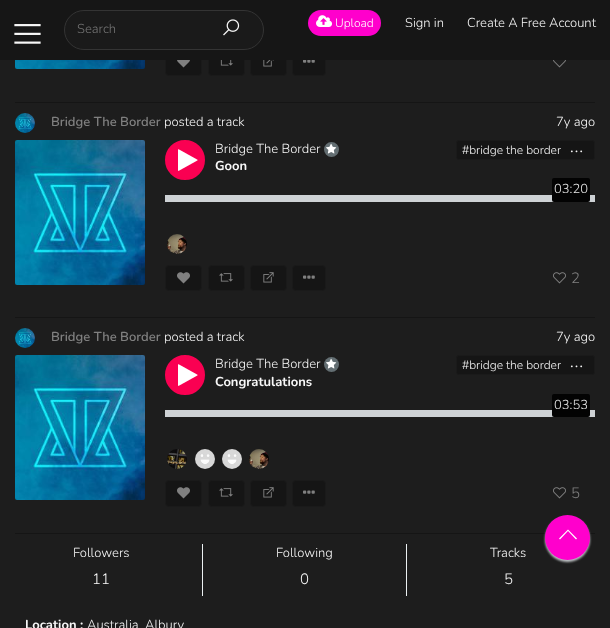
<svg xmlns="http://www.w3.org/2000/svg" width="610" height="628">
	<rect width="100%" height="100%" fill="#1D1D1D" />
	<rect x="165.5" y="49.5" width="36" height="26" rx="3.5" fill="#151515" stroke="#1A1A1A" />
	<rect x="208.5" y="49.5" width="36" height="26" rx="3.5" fill="#151515" stroke="#1A1A1A" />
	<rect x="250.5" y="49.5" width="36" height="26" rx="3.5" fill="#151515" stroke="#1A1A1A" />
	<rect x="292.5" y="49.5" width="33" height="26" rx="3.5" fill="#151515" stroke="#1A1A1A" />
	<rect x="0" y="0" width="610" height="60" fill="#161616" />
	<image x="14" y="24" width="27" height="20" href="assets/img1.png" />
	<rect x="64.5" y="10.5" width="199" height="39" rx="19.5" fill="#1A1A1A" stroke="#343434" />
	<text x="77" y="33" font-family="Nunito" font-size="13" font-weight="300" fill="#757575">Search</text>
	<image x="223" y="19" width="17" height="17" href="assets/img2.png" />
	<rect x="308" y="10" width="73" height="26" rx="13" fill="#FF00CC" />
	<image x="316" y="15" width="17" height="12" href="assets/img3.png" />
	<text x="335" y="27" font-family="Nunito" font-size="12" font-weight="300" fill="#FFFFFF">Upload</text>
	<g font-family="Nunito" font-size="13" font-weight="300" fill="#F8F8F8">
		<text x="405" y="27">Sign in</text>
		<text x="467" y="27">Create A Free Account</text>
	</g>
	<rect x="15" y="102" width="580" height="1" fill="#151515" />
	<image x="15" y="60" width="130" height="9" href="assets/img4.png" />
	<image x="177" y="60" width="13" height="8" href="assets/img5.png" />
	<image x="220" y="60" width="13" height="6" href="assets/img6.png" />
	<image x="263" y="60" width="11" height="7" href="assets/img7.png" />
	<image x="303" y="60" width="12" height="3" href="assets/img8.png" />
	<image x="553" y="60" width="13" height="8" href="assets/img9.png" />
	<rect x="15" y="317" width="580" height="1" fill="#151515" />
	<image x="15" y="113" width="20" height="20" href="assets/img10.png" />
	<text x="51" y="126" font-family="Nunito" font-size="13" font-weight="600" fill="#808080">Bridge The Border</text>
	<g font-family="Nunito" font-size="13" font-weight="300" fill="#F8F8F8">
		<text x="164" y="126">posted a track</text>
		<text x="556" y="126">7y ago</text>
	</g>
	<image x="15" y="140" width="130" height="145" href="assets/img11.png" />
	<circle cx="185" cy="160" r="19" fill="#FA0052" stroke="#FA0052" stroke-width="2" />
	<image x="178" y="149" width="20" height="22" href="assets/img12.png" />
	<text x="215" y="153" font-family="Nunito" font-size="13" font-weight="300" fill="#F8F8F8">Bridge The Border</text>
	<circle cx="331.5" cy="149.5" r="7.5" fill="#636E72" />
	<image x="326" y="143" width="11" height="11" href="assets/img13.png" />
	<text x="215" y="170" font-family="Nunito" font-size="13" font-weight="700" fill="#F8F8F8">Goon</text>
	<rect x="456.5" y="140.5" width="138" height="19" rx="2.5" fill="#151515" stroke="#1A1A1A" />
	<text x="462" y="154" font-family="Nunito" font-size="12" font-weight="300" fill="#F8F8F8">#bridge the border</text>
	<image x="570" y="150" width="13" height="3" href="assets/img14.png" />
	<rect x="165" y="195" width="430" height="7" fill="#CED2D5" />
	<rect x="552" y="178" width="38" height="24" rx="2" fill="#030303" />
	<text x="554" y="193" font-family="Nunito" font-size="13" font-weight="300" fill="#E8E8E8">03:20</text>
	<image x="167" y="234" width="20" height="20" href="assets/img15.png" />
	<rect x="165.5" y="265.5" width="36" height="25" rx="3.5" fill="#151515" stroke="#1A1A1A" />
	<image x="177" y="272" width="13" height="12" href="assets/img16.png" />
	<rect x="208.5" y="265.5" width="36" height="25" rx="3.5" fill="#151515" stroke="#1A1A1A" />
	<image x="219" y="273" width="14" height="9" href="assets/img17.png" />
	<rect x="250.5" y="265.5" width="36" height="25" rx="3.5" fill="#151515" stroke="#1A1A1A" />
	<image x="263" y="272" width="11" height="11" href="assets/img18.png" />
	<rect x="292.5" y="265.5" width="33" height="25" rx="3.5" fill="#151515" stroke="#1A1A1A" />
	<image x="303" y="275" width="12" height="4" href="assets/img19.png" />
	<image x="553" y="272" width="13" height="12" href="assets/img20.png" />
	<text x="571" y="283" font-family="Nunito" font-size="15" font-weight="300" fill="#808080">2</text>
	<rect x="15" y="533" width="580" height="1" fill="#151515" />
	<image x="15" y="328" width="20" height="20" href="assets/img21.png" />
	<text x="51" y="341" font-family="Nunito" font-size="13" font-weight="600" fill="#808080">Bridge The Border</text>
	<g font-family="Nunito" font-size="13" font-weight="300" fill="#F8F8F8">
		<text x="164" y="341">posted a track</text>
		<text x="556" y="341">7y ago</text>
	</g>
	<image x="15" y="355" width="130" height="145" href="assets/img22.png" />
	<circle cx="185" cy="375" r="19" fill="#FA0052" stroke="#FA0052" stroke-width="2" />
	<image x="178" y="364" width="20" height="22" href="assets/img12.png" />
	<text x="215" y="368" font-family="Nunito" font-size="13" font-weight="300" fill="#F8F8F8">Bridge The Border</text>
	<circle cx="331.5" cy="364.5" r="7.5" fill="#636E72" />
	<image x="326" y="358" width="11" height="11" href="assets/img13.png" />
	<text x="215" y="386" font-family="Nunito" font-size="13" font-weight="700" fill="#F8F8F8">Congratulations</text>
	<rect x="456.5" y="355.5" width="138" height="19" rx="2.5" fill="#151515" stroke="#1A1A1A" />
	<text x="462" y="369" font-family="Nunito" font-size="12" font-weight="300" fill="#F8F8F8">#bridge the border</text>
	<image x="570" y="365" width="13" height="3" href="assets/img14.png" />
	<rect x="165" y="410" width="430" height="7" fill="#CED2D5" />
	<rect x="552" y="394" width="38" height="23" rx="2" fill="#030303" />
	<text x="554" y="409" font-family="Nunito" font-size="13" font-weight="300" fill="#E8E8E8">03:53</text>
	<image x="167" y="449" width="20" height="20" href="assets/img23.png" />
	<image x="195" y="449" width="20" height="20" href="assets/img24.png" />
	<image x="222" y="449" width="20" height="20" href="assets/img25.png" />
	<image x="249" y="449" width="20" height="20" href="assets/img26.png" />
	<rect x="165.5" y="480.5" width="36" height="26" rx="3.5" fill="#151515" stroke="#1A1A1A" />
	<image x="177" y="487" width="13" height="12" href="assets/img16.png" />
	<rect x="208.5" y="480.5" width="36" height="26" rx="3.5" fill="#151515" stroke="#1A1A1A" />
	<image x="219" y="488" width="14" height="9" href="assets/img17.png" />
	<rect x="250.5" y="480.5" width="36" height="26" rx="3.5" fill="#151515" stroke="#1A1A1A" />
	<image x="263" y="487" width="11" height="11" href="assets/img18.png" />
	<rect x="292.5" y="480.5" width="33" height="26" rx="3.5" fill="#151515" stroke="#1A1A1A" />
	<image x="303" y="490" width="12" height="4" href="assets/img19.png" />
	<image x="553" y="487" width="13" height="12" href="assets/img20.png" />
	<text x="571" y="498" font-family="Nunito" font-size="15" font-weight="300" fill="#808080">5</text>
	<rect x="202" y="544" width="1" height="52" fill="#EBF0F2" />
	<text x="73" y="557" font-family="Nunito" font-size="13" font-weight="300" fill="#F8F8F8">Followers</text>
	<text x="92" y="584" font-family="Nunito" font-size="15" font-weight="300" fill="#F8F8F8">11</text>
	<rect x="406" y="544" width="1" height="52" fill="#EBF0F2" />
	<text x="276" y="557" font-family="Nunito" font-size="13" font-weight="300" fill="#F8F8F8">Following</text>
	<text x="300" y="584" font-family="Nunito" font-size="15" font-weight="300" fill="#F8F8F8">0</text>
	<text x="490" y="557" font-family="Nunito" font-size="13" font-weight="300" fill="#F8F8F8">Tracks</text>
	<text x="504" y="584" font-family="Nunito" font-size="15" font-weight="300" fill="#F8F8F8">5</text>
	<text x="25" y="629" font-family="Nunito" font-size="13" font-weight="700" fill="#F8F8F8">Location :</text>
	<g font-family="Nunito" font-size="13" font-weight="300" fill="#F8F8F8">
		<text x="87" y="629">Australia</text>
		<text x="145" y="629">Albury</text>
	</g>
	<rect x="545" y="517" width="45" height="45" rx="22.5" fill="#C1C5C8" filter="blur(1px)" />
	<circle cx="567.5" cy="537.5" r="22.5" fill="#FF00CC" />
	<path d="M568 529.5L577 538.5L576 539.5L568 531L560 539.5L559 538.5Z" fill="#FFFFFF" />
</svg>
